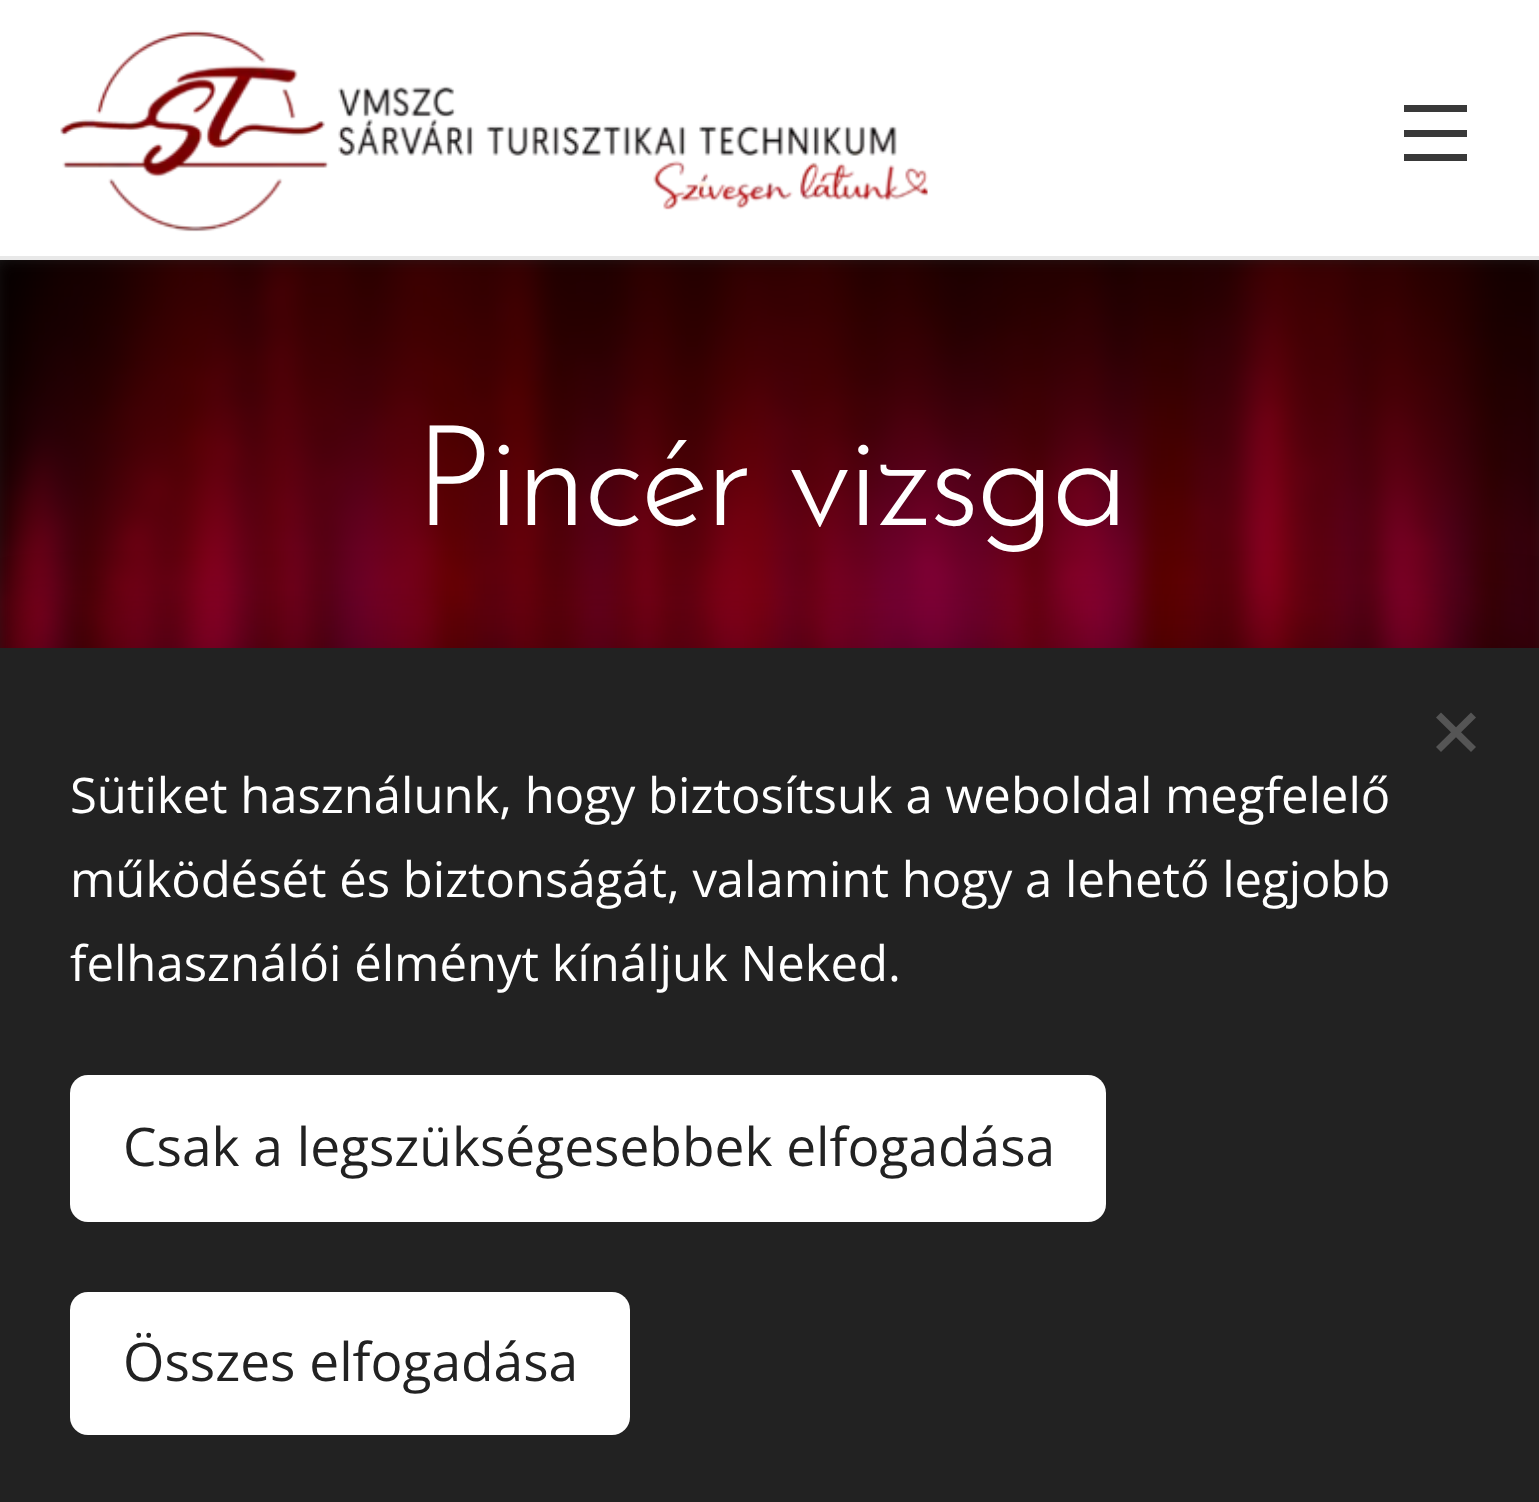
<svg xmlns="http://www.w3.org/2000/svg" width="1539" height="1502">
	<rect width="100%" height="100%" fill="#FFFFFF" />
	<image x="60" y="30" width="868" height="202" href="assets/img1.png" />
	<rect x="1404" y="130" width="63" height="7" fill="#393939" />
	<rect x="1404" y="105" width="63" height="7" fill="#393939" />
	<rect x="1404" y="154" width="63" height="7" fill="#393939" />
	<rect x="0" y="256" width="1539" height="4" fill="#E8E8E8" />
	<rect x="0" y="260" width="1539" height="388" fill="#272727" />
	<image x="0" y="260" width="1539" height="388" href="assets/img2.png" />
	<text x="414" y="525" font-family="Josefin Sans" font-size="140" font-weight="300" letter-spacing="-4.25" fill="#FFFFFF">Pincér vizsga</text>
	<rect x="0" y="648" width="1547" height="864" fill="#000000" fill-opacity="0.33" filter="blur(44px)" />
	<rect x="0" y="648" width="1539" height="854" fill="#222222" />
	<path d="M1436 747L1471 712.5L1476 717.5L1441 752Z" fill="#555555" />
	<path d="M1441 712.5L1476 747L1471 752L1436 717.5Z" fill="#555555" />
	<g font-family="Open Sans" font-size="49" fill="#FFFFFF">
		<text x="70" y="813">Sütiket használunk, hogy biztosítsuk a weboldal megfelelő</text>
		<text x="70" y="897">működését és biztonságát, valamint hogy a lehető legjobb</text>
		<text x="70" y="981">felhasználói élményt kínáljuk Neked.</text>
	</g>
	<rect x="70" y="1075" width="1036" height="147" rx="18" fill="#FFFFFF" />
	<text x="123" y="1166" font-family="Open Sans" font-size="53.25" fill="#222222">Csak a legszükségesebbek elfogadása</text>
	<rect x="70" y="1292" width="560" height="143" rx="18" fill="#FFFFFF" />
	<text x="123" y="1381" font-family="Open Sans" font-size="53.25" fill="#222222">Összes elfogadása</text>
</svg>
